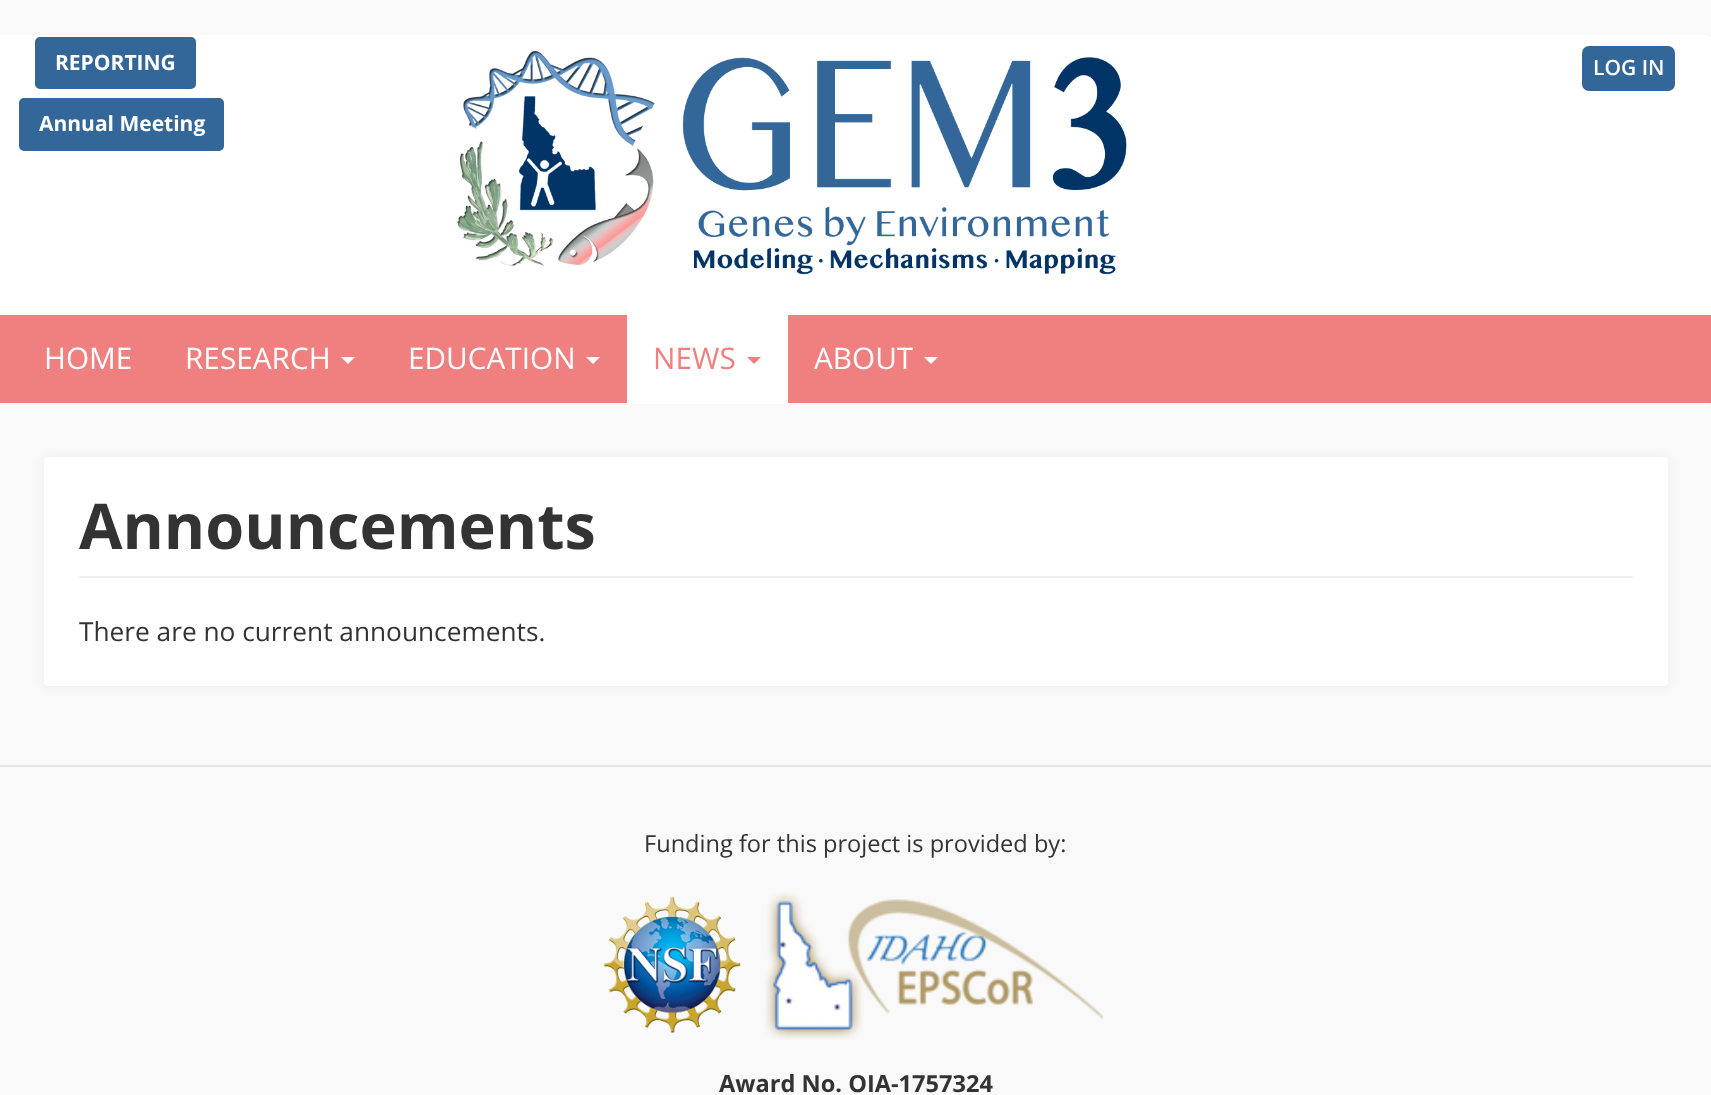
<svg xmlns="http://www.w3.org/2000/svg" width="1711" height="1095">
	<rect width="100%" height="100%" fill="#F9F9F9" />
	<rect x="-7" y="35" width="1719" height="369" rx="7" fill="#FFFFFF" />
	<rect x="36" y="38" width="159" height="50" rx="4" fill="#336699" stroke="#336699" stroke-width="2" />
	<text x="55" y="70" font-family="Open Sans" font-size="21" font-weight="700" fill="#FFFFFF">REPORTING</text>
	<rect x="20" y="99" width="203" height="51" rx="4" fill="#336699" stroke="#336699" stroke-width="2" />
	<text x="39" y="131" font-family="Open Sans" font-size="21" font-weight="700" fill="#FFFFFF">Annual Meeting</text>
	<image x="457" y="50" width="670" height="225" href="assets/img1.png" />
	<rect x="1582" y="46" width="93" height="45" rx="7" fill="#336699" />
	<text x="1593" y="75" font-family="Open Sans" font-size="21" font-weight="600" fill="#FFFFFF">LOG IN</text>
	<rect x="0" y="315" width="1711" height="88" fill="#F08080" />
	<g font-family="Open Sans" font-size="29.75" fill="#FFFFFF">
		<text x="44" y="369">HOME</text>
		<text x="185" y="369">RESEARCH</text>
	</g>
	<path d="M341 357H355L348 364Z" fill="#FFFFFF" />
	<text x="408" y="369" font-family="Open Sans" font-size="29.75" fill="#FFFFFF">EDUCATION</text>
	<path d="M586 357H600L593 364Z" fill="#FFFFFF" />
	<rect x="627" y="315" width="161" height="88" fill="#FFFFFF" />
	<text x="653" y="369" font-family="Open Sans" font-size="29.75" fill="#F08080">NEWS</text>
	<path d="M747 357H761L754 364Z" fill="#F08080" />
	<text x="814" y="369" font-family="Open Sans" font-size="29.75" fill="#FFFFFF">ABOUT</text>
	<path d="M924 357H938L931 364Z" fill="#FFFFFF" />
	<rect x="44" y="457" width="1624" height="229" rx="4" fill="#000000" fill-opacity="0.05" filter="blur(6px)" />
	<rect x="44" y="457" width="1624" height="229" rx="4" fill="#FFFFFF" />
	<rect x="79" y="576" width="1554" height="2" fill="#EEEEEE" />
	<text x="79" y="549" font-family="Open Sans" font-size="63" font-weight="700" fill="#333333">Announcements</text>
	<text x="79" y="641" font-family="Open Sans" font-size="26.25" fill="#333333">There are no current announcements.</text>
	<rect x="0" y="765" width="1711" height="2" fill="#E5E5E5" />
	<text x="644" y="852" font-family="Open Sans" font-size="23.6" fill="#333333">Funding for this project is provided by:</text>
	<image x="603" y="896" width="138" height="137" href="assets/img2.png" />
	<image x="764" y="892" width="340" height="148" href="assets/img3.png" />
	<text x="719" y="1092" font-family="Open Sans" font-size="23.6" font-weight="700" fill="#333333">Award No. OIA-1757324</text>
</svg>
